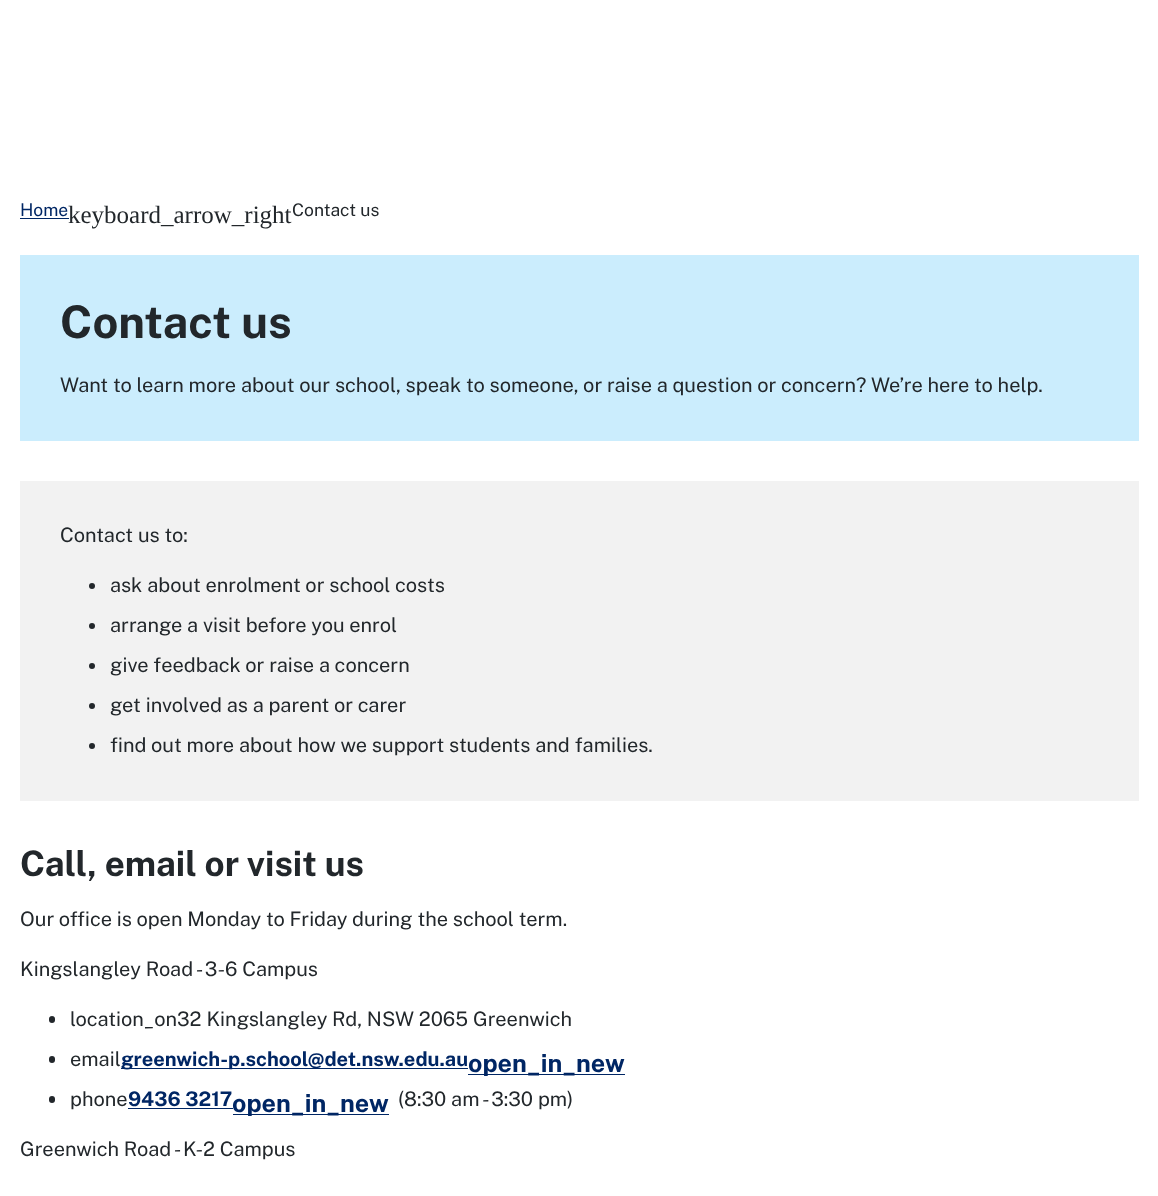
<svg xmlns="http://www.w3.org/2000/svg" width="1158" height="1196">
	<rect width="100%" height="100%" fill="#FFFFFF" />
	<text x="20" y="216" font-family="Public Sans" font-size="17.5" fill="#002664">Home</text>
	<rect x="20" y="218" width="49" height="1" fill="#002664" />
	<text x="68" y="223" font-family="Liberation Serif" font-size="25" fill="#22272B">keyboard_arrow_right</text>
	<text x="292" y="216" font-family="Public Sans" font-size="17.5" fill="#22272B">Contact us</text>
	<rect x="20" y="255" width="1119" height="186" fill="#CBEDFD" />
	<text x="60" y="338" font-family="Public Sans" font-size="45" font-weight="700" fill="#22272B">Contact us</text>
	<text x="60" y="392" font-family="Public Sans" font-size="20" fill="#22272B">Want to learn more about our school, speak to someone, or raise a question or concern? We’re here to help.</text>
	<rect x="20" y="481" width="1119" height="320" fill="#F2F2F2" />
	<text x="60" y="542" font-family="Public Sans" font-size="20" fill="#22272B">Contact us to:</text>
	<circle cx="92" cy="586" r="3" fill="#22272B" />
	<text x="110" y="592" font-family="Public Sans" font-size="20" fill="#22272B">ask about enrolment or school costs</text>
	<circle cx="92" cy="626" r="3" fill="#22272B" />
	<text x="110" y="632" font-family="Public Sans" font-size="20" fill="#22272B">arrange a visit before you enrol</text>
	<circle cx="92" cy="666" r="3" fill="#22272B" />
	<text x="110" y="672" font-family="Public Sans" font-size="20" fill="#22272B">give feedback or raise a concern</text>
	<circle cx="92" cy="706" r="3" fill="#22272B" />
	<text x="110" y="712" font-family="Public Sans" font-size="20" fill="#22272B">get involved as a parent or carer</text>
	<circle cx="92" cy="746" r="3" fill="#22272B" />
	<text x="110" y="752" font-family="Public Sans" font-size="20" fill="#22272B">find out more about how we support students and families.</text>
	<text x="20" y="876" font-family="Public Sans" font-size="35" font-weight="700" fill="#22272B">Call, email or visit us</text>
	<g font-family="Public Sans" font-size="20" fill="#22272B">
		<text x="20" y="926">Our office is open Monday to Friday during the school term.</text>
		<text x="20" y="976">Kingslangley Road - 3-6 Campus</text>
	</g>
	<rect x="49" y="1016" width="6" height="7" rx="3" fill="#22272B" />
	<text x="70" y="1026" font-family="Public Sans" font-size="20" fill="#22272B">location_on32 Kingslangley Rd, NSW 2065 Greenwich</text>
	<rect x="49" y="1056" width="6" height="7" rx="3" fill="#22272B" />
	<text x="70" y="1066" font-family="Public Sans" font-size="20" fill="#22272B">email</text>
	<rect x="121" y="1068" width="347" height="1" fill="#002664" />
	<text x="121" y="1066" font-family="Public Sans" font-size="20" font-weight="700" fill="#002664">greenwich-p.school@det.nsw.edu.au</text>
	<rect x="468" y="1074" width="157" height="1" fill="#002664" />
	<text x="468" y="1072" font-family="Public Sans" font-size="25" font-weight="700" fill="#002664">open_in_new</text>
	<rect x="49" y="1096" width="6" height="7" rx="3" fill="#22272B" />
	<text x="70" y="1106" font-family="Public Sans" font-size="20" fill="#22272B">phone</text>
	<text x="128" y="1106" font-family="Public Sans" font-size="20" font-weight="700" fill="#002664">9436 3217</text>
	<rect x="128" y="1108" width="105" height="1" fill="#002664" />
	<rect x="233" y="1114" width="156" height="1" fill="#002664" />
	<text x="232" y="1112" font-family="Public Sans" font-size="25" font-weight="700" fill="#002664">open_in_new</text>
	<g font-family="Public Sans" font-size="20" fill="#22272B">
		<text x="398" y="1106">(8:30 am - 3:30 pm)</text>
		<text x="20" y="1156">Greenwich Road - K-2 Campus</text>
	</g>
</svg>
